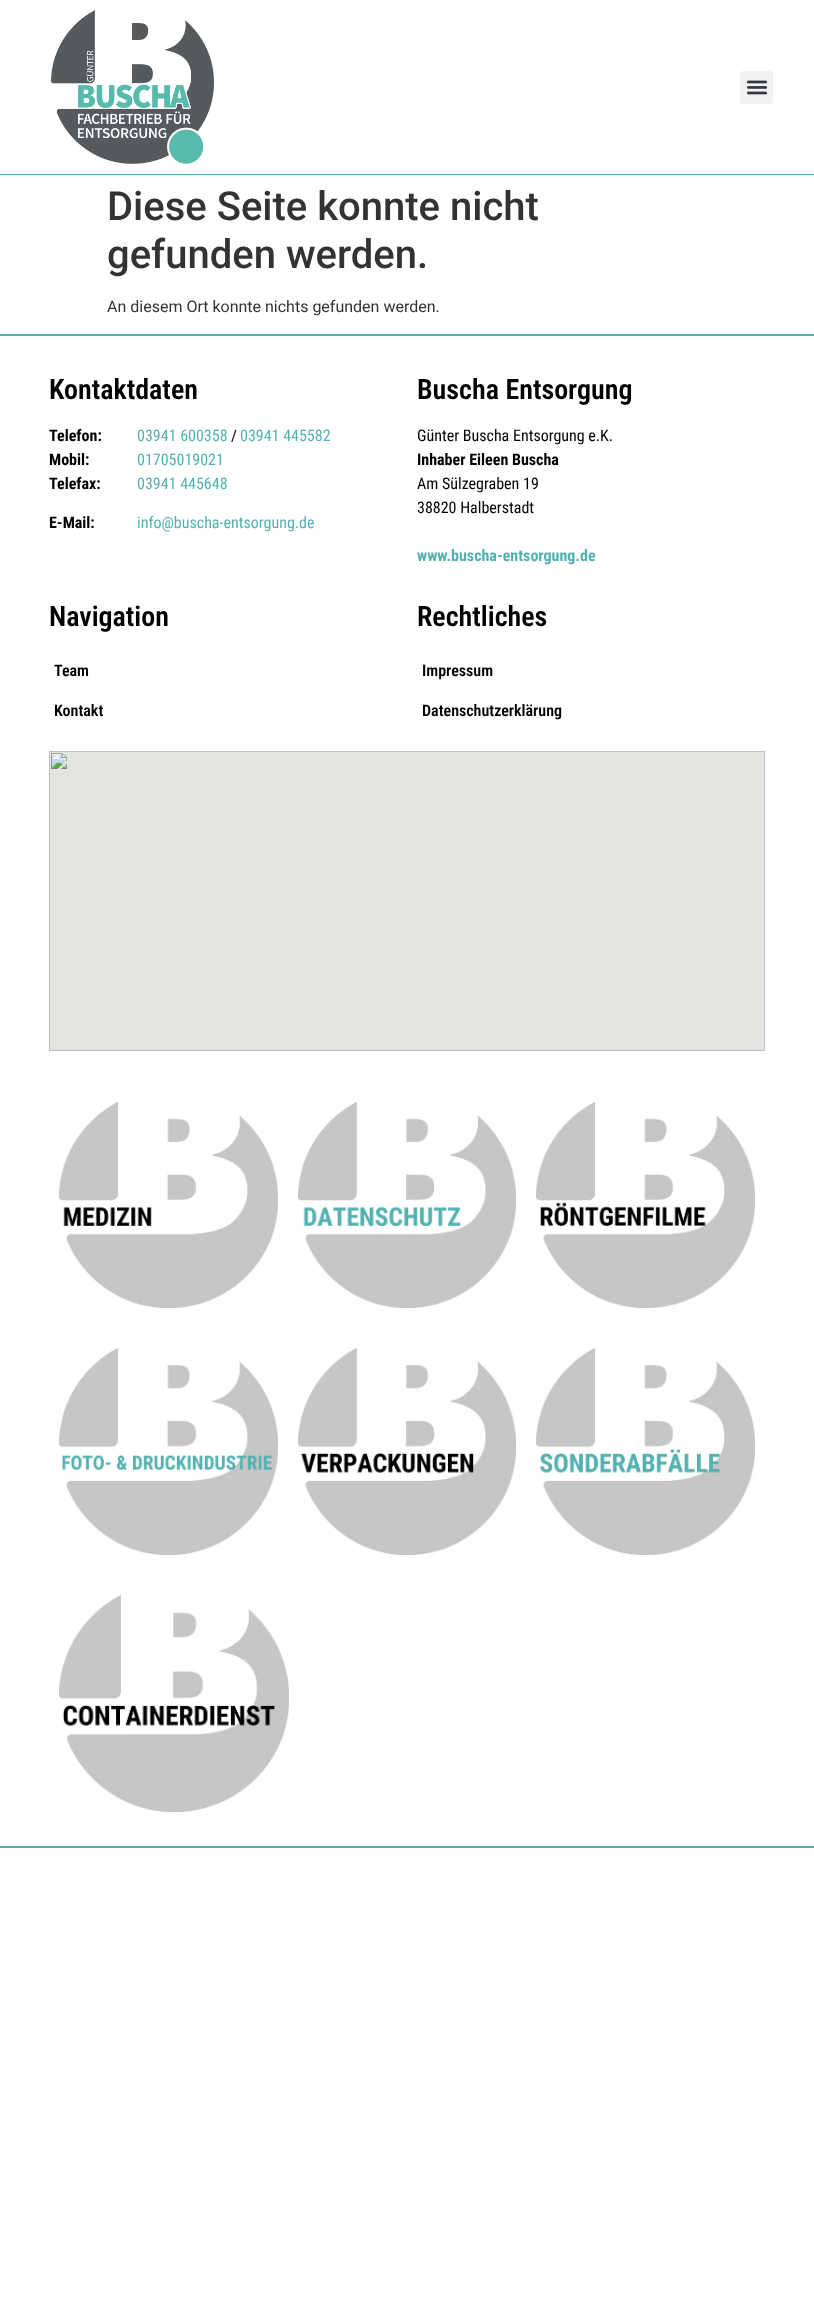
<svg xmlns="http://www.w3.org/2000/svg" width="814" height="2302">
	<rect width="100%" height="100%" fill="#FFFFFF" />
	<rect x="0" y="174" width="814" height="1" fill="#53B2B1" />
	<image x="51" y="10" width="163" height="154" href="assets/img1.png" />
	<rect x="740" y="71" width="33" height="33" rx="3" fill="#F2F2F2" />
	<image x="746" y="80" width="22" height="15" href="assets/img2.png" />
	<g font-family="Roboto" font-size="40" font-weight="500" fill="#333333">
		<text x="107" y="220">Diese Seite konnte nicht</text>
		<text x="107" y="268">gefunden werden.</text>
	</g>
	<text x="107" y="312" font-family="Roboto" font-size="16" fill="#333333">An diesem Ort konnte nichts gefunden werden.</text>
	<rect x="0" y="334" width="814" height="2" fill="#53B2B1" />
	<text x="49" y="399" font-family="Roboto Condensed" font-size="28" font-weight="600" fill="#000000">Kontaktdaten</text>
	<g font-family="Roboto Condensed" font-size="16" font-weight="700" fill="#000000">
		<text x="49" y="441">Telefon:</text>
		<text x="49" y="465">Mobil:</text>
		<text x="49" y="489">Telefax:</text>
		<text x="49" y="528">E-Mail:</text>
	</g>
	<text x="137" y="441" font-family="Roboto Condensed" font-size="16" fill="#53B2B1">03941 600358</text>
	<text x="231" y="441" font-family="Roboto Condensed" font-size="16" fill="#000000">/</text>
	<g font-family="Roboto Condensed" font-size="16" fill="#53B2B1">
		<text x="240" y="441">03941 445582</text>
		<text x="137" y="465">01705019021</text>
		<text x="137" y="489">03941 445648</text>
		<text x="137" y="528">info@buscha-entsorgung.de</text>
	</g>
	<text x="417" y="399" font-family="Roboto Condensed" font-size="28" font-weight="600" fill="#000000">Buscha Entsorgung</text>
	<text x="417" y="441" font-family="Roboto Condensed" font-size="16" fill="#000000">Günter Buscha Entsorgung e.K.</text>
	<text x="417" y="465" font-family="Roboto Condensed" font-size="16" font-weight="700" fill="#000000">Inhaber Eileen Buscha</text>
	<g font-family="Roboto Condensed" font-size="16" fill="#000000">
		<text x="417" y="489">Am Sülzegraben 19</text>
		<text x="417" y="513">38820 Halberstadt</text>
	</g>
	<text x="417" y="561" font-family="Roboto Condensed" font-size="16" font-weight="700" fill="#53B2B1">www.buscha-entsorgung.de</text>
	<text x="49" y="626" font-family="Roboto Condensed" font-size="28" font-weight="600" fill="#000000">Navigation</text>
	<g font-family="Roboto Condensed" font-size="16" font-weight="600" fill="#000000">
		<text x="54" y="676">Team</text>
		<text x="54" y="716">Kontakt</text>
	</g>
	<text x="417" y="626" font-family="Roboto Condensed" font-size="28" font-weight="600" fill="#000000">Rechtliches</text>
	<g font-family="Roboto Condensed" font-size="16" font-weight="600" fill="#000000">
		<text x="422" y="676">Impressum</text>
		<text x="422" y="716">Datenschutzerklärung</text>
	</g>
	<image x="49" y="751" width="716" height="300" href="assets/img3.png" />
	<rect x="0" y="1846" width="814" height="2" fill="#53B2B1" />
	<image x="59" y="1102" width="219" height="206" href="assets/img4.png" />
	<image x="298" y="1102" width="218" height="206" href="assets/img5.png" />
	<image x="536" y="1102" width="219" height="206" href="assets/img6.png" />
	<image x="59" y="1348" width="219" height="207" href="assets/img7.png" />
	<image x="298" y="1348" width="218" height="207" href="assets/img8.png" />
	<image x="536" y="1348" width="219" height="207" href="assets/img9.png" />
	<image x="59" y="1595" width="230" height="217" href="assets/img10.png" />
</svg>
